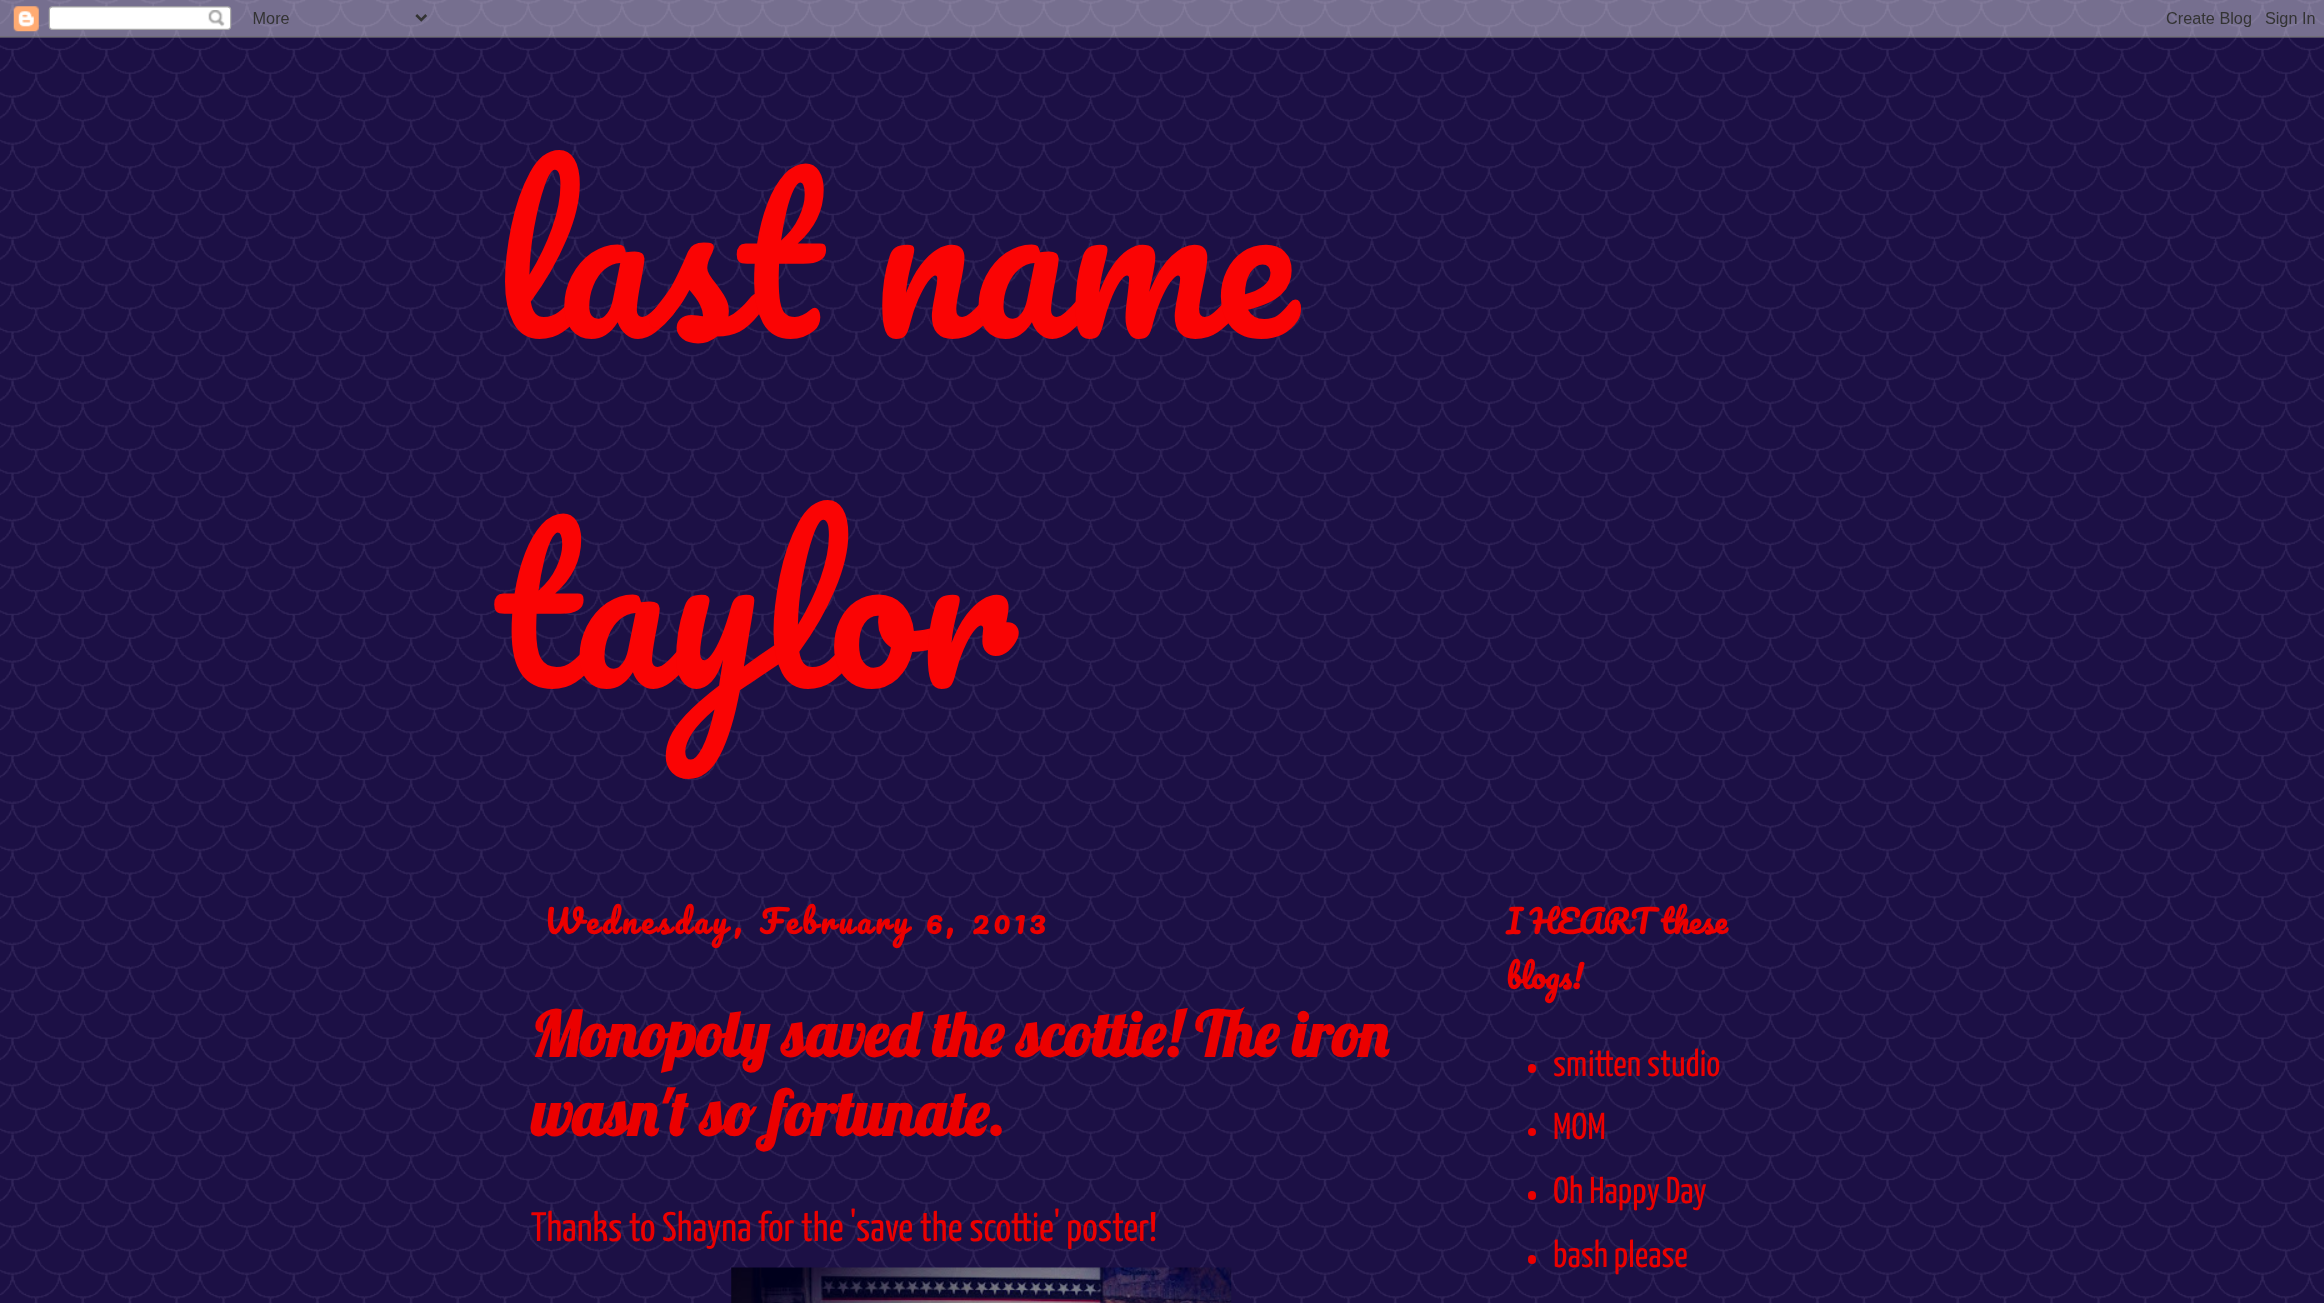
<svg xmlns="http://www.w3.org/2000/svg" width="2324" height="1303">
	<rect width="100%" height="100%" fill="#20124D" />
	<image x="0" y="500" width="2324" height="803" href="assets/img1.png" />
	<image x="0" y="0" width="2324" height="500" href="assets/img2.png" />
	<image x="0" y="0" width="2324" height="38" href="assets/img3.png" />
	<g font-family="Pacifico" font-size="200" fill="#FA0404">
		<text x="494" y="338">last name</text>
		<text x="494" y="688">taylor</text>
	</g>
	<text x="544" y="934" word-spacing="2" font-family="Pacifico" font-size="31.25" font-weight="700" letter-spacing="3.75" fill="#EB0000">Wednesday, February 6, 2013</text>
	<g font-family="Lobster" font-size="62.5" font-weight="700" fill="#EB0000">
		<text x="531" y="1057">Monopoly saved the scottie! The iron</text>
		<text x="531" y="1136">wasn't so fortunate.</text>
	</g>
	<text x="531" y="1241" font-family="Yanone Kaffeesatz" font-size="41.25" font-weight="200" fill="#EB0000">Thanks to Shayna for the 'save the scottie' poster!</text>
	<image x="731" y="1267" width="501" height="36" href="assets/img4.png" />
	<g font-family="Pacifico" font-size="31.25" font-weight="700" fill="#EB0000">
		<text x="1506" y="934">I HEART these</text>
		<text x="1506" y="989">blogs!</text>
	</g>
	<rect x="1528" y="1064" width="8" height="9" rx="4" fill="#EB0000" />
	<text x="1553" y="1076" font-family="Yanone Kaffeesatz" font-size="37.5" font-weight="200" fill="#EB0000">smitten studio</text>
	<circle cx="1532" cy="1132" r="4" fill="#EB0000" />
	<text x="1553" y="1139" font-family="Yanone Kaffeesatz" font-size="37.5" font-weight="200" fill="#EB0000">MOM</text>
	<rect x="1528" y="1191" width="8" height="9" rx="4" fill="#EB0000" />
	<text x="1553" y="1203" font-family="Yanone Kaffeesatz" font-size="37.5" font-weight="200" fill="#EB0000">Oh Happy Day</text>
	<rect x="1528" y="1255" width="8" height="9" rx="4" fill="#EB0000" />
	<text x="1553" y="1267" font-family="Yanone Kaffeesatz" font-size="37.5" font-weight="200" fill="#EB0000">bash please</text>
</svg>
